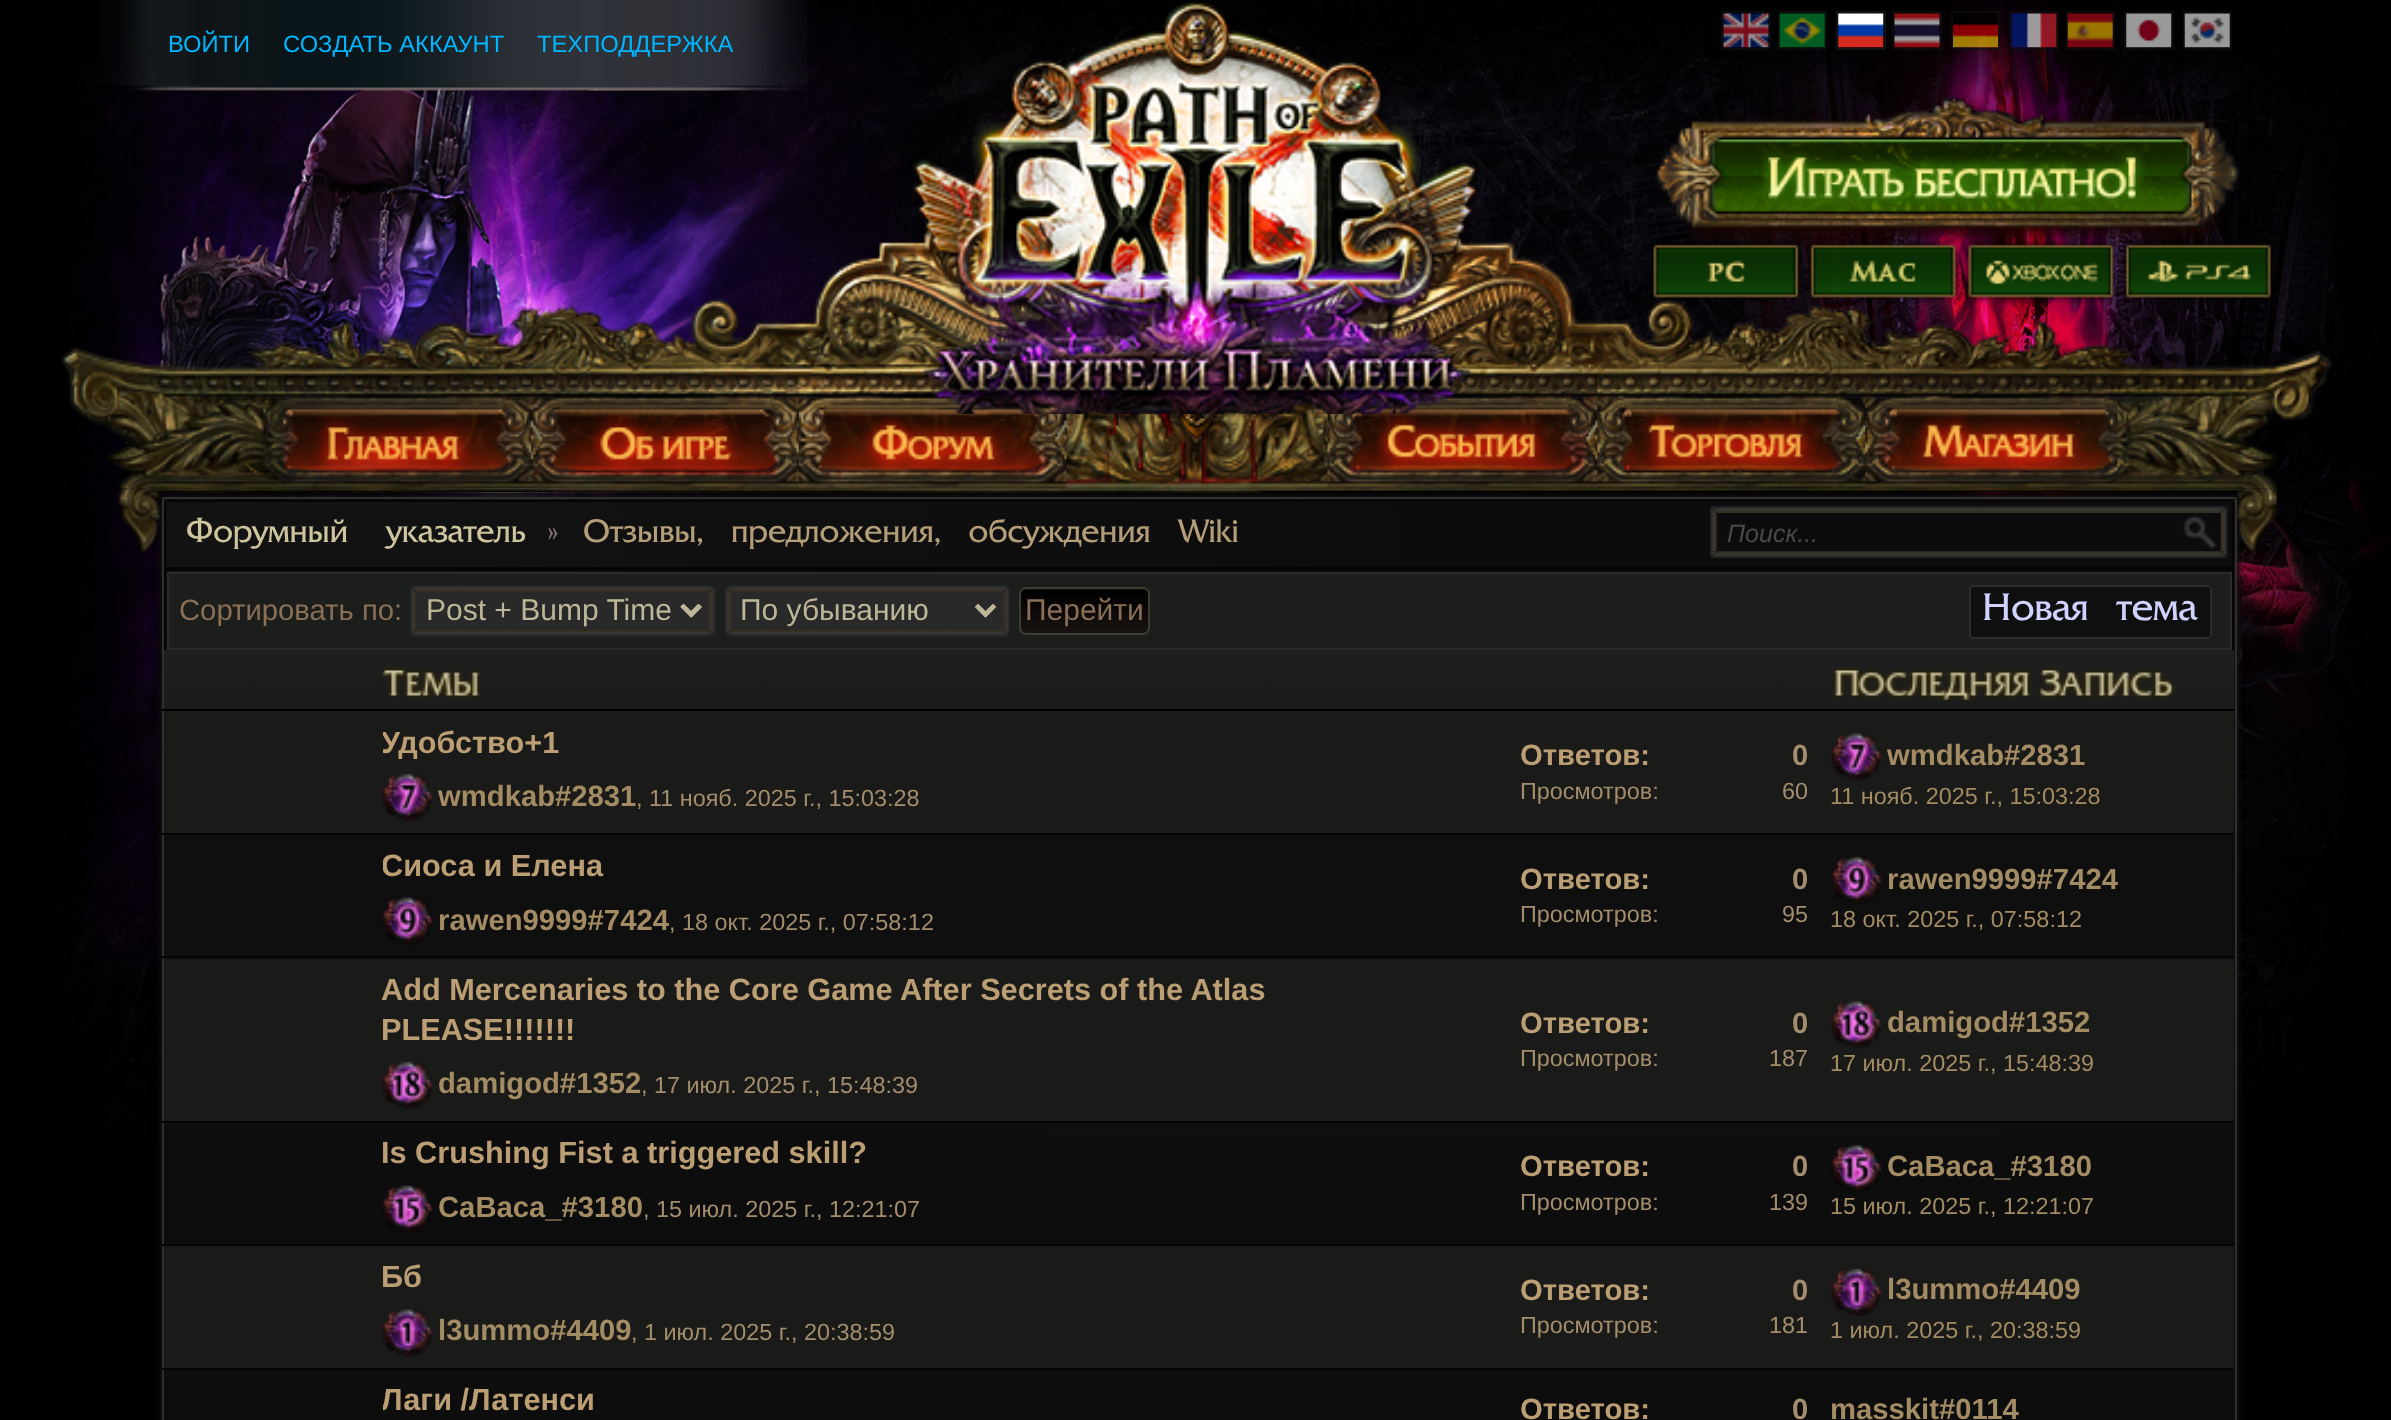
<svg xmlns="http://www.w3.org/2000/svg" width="2391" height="1420">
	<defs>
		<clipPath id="clip1"><path d="M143 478H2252V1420H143ZM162 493H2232V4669H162Z" clip-rule="evenodd" /></clipPath>
		<clipPath id="clip2"><path d="M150 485H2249V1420H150ZM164 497H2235C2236 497 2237 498 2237 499V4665C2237 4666 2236 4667 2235 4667H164C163 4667 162 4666 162 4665V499C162 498 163 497 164 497Z" clip-rule="evenodd" /></clipPath>
		<clipPath id="clip3"><path d="M169 500H2229C2232 500 2234 502 2234 505V567H164V505C164 502 166 500 169 500Z" /></clipPath>
		<linearGradient id="g1" gradientUnits="userSpaceOnUse" x1="167" y1="534" x2="-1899" y2="534"><stop offset="0" stop-color="#0C0C0C" /><stop offset="0.4" stop-color="#0C0C0C" /><stop offset="1" stop-color="#131313" /></linearGradient>
		<linearGradient id="g2" gradientUnits="userSpaceOnUse" x1="2232" y1="534" x2="167" y2="534"><stop offset="0" stop-color="#0C0C0C" /><stop offset="0.4" stop-color="#0C0C0C" /><stop offset="1" stop-color="#131313" /></linearGradient>
		<linearGradient id="g3" gradientUnits="userSpaceOnUse" x1="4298" y1="534" x2="2232" y2="534"><stop offset="0" stop-color="#0C0C0C" /><stop offset="0.4" stop-color="#0C0C0C" /><stop offset="1" stop-color="#131313" /></linearGradient>
		<linearGradient id="g4" gradientUnits="userSpaceOnUse" x1="167" y1="611" x2="-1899" y2="611"><stop offset="0" stop-color="#0C0C0C" /><stop offset="0.4" stop-color="#0C0C0C" /><stop offset="1" stop-color="#131313" /></linearGradient>
		<linearGradient id="g5" gradientUnits="userSpaceOnUse" x1="2232" y1="611" x2="167" y2="611"><stop offset="0" stop-color="#0C0C0C" /><stop offset="0.4" stop-color="#0C0C0C" /><stop offset="1" stop-color="#131313" /></linearGradient>
		<linearGradient id="g6" gradientUnits="userSpaceOnUse" x1="2027" y1="650" x2="2027" y2="709"><stop offset="0" stop-color="#1E1F1E" /><stop offset="1" stop-color="#1B1B1B" /></linearGradient>
		<linearGradient id="g7" gradientUnits="userSpaceOnUse" x1="268" y1="650" x2="268" y2="709"><stop offset="0" stop-color="#1E1F1E" /><stop offset="1" stop-color="#1B1B1B" /></linearGradient>
		<linearGradient id="g8" gradientUnits="userSpaceOnUse" x1="941" y1="650" x2="941" y2="709"><stop offset="0" stop-color="#1E1F1E" /><stop offset="1" stop-color="#1B1B1B" /></linearGradient>
		<linearGradient id="g9" gradientUnits="userSpaceOnUse" x1="1665" y1="650" x2="1665" y2="709"><stop offset="0" stop-color="#1E1F1E" /><stop offset="1" stop-color="#1B1B1B" /></linearGradient>
		<clipPath id="clip4"><rect x="383" y="722" width="981" height="41" /></clipPath>
		<clipPath id="clip5"><rect x="383" y="846" width="981" height="41" /></clipPath>
		<clipPath id="clip6"><rect x="383" y="1382" width="981" height="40" /></clipPath>
	</defs>
	<rect width="100%" height="100%" fill="#000000" />
	<image x="55" y="0" width="2336" height="1173" href="assets/img1.png" />
	<g clip-path="url(#clip1)">
		<rect x="158" y="493" width="2079" height="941" fill="#000000" fill-opacity="0.88" filter="blur(4.5px)" />
	</g>
	<image x="61" y="220" width="2272" height="269" href="assets/img2.png" />
	<image x="98" y="0" width="709" height="91" href="assets/img3.png" />
	<image x="589" y="89" width="10" height="2" href="assets/img5.png" />
	<image x="594" y="0" width="213" height="91" href="assets/img4.png" />
	<g font-family="Liberation Sans" font-size="23.75" fill="#00B6FF">
		<text x="168" y="52">ВОЙТИ</text>
		<text x="283" y="52">СОЗДАТЬ АККАУНТ</text>
		<text x="537" y="52">ТЕХПОДДЕРЖКА</text>
	</g>
	<rect x="162" y="493" width="2070" height="9" fill="#000000" fill-opacity="0.91" />
	<image x="117" y="488" width="2160" height="66" href="assets/img27.png" />
	<g clip-path="url(#clip2)">
		<rect x="162" y="497" width="2075" height="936" rx="2" fill="#1B1B1B" filter="blur(3.5px)" />
	</g>
	<image x="531" y="375" width="268" height="114" href="assets/img22.png" />
	<image x="798" y="375" width="269" height="114" href="assets/img23.png" />
	<image x="1327" y="376" width="271" height="112" href="assets/img24.png" />
	<image x="913" y="2" width="565" height="412" href="assets/img6.png" />
	<rect x="1722" y="12" width="48" height="37" fill="none" stroke="#111111" stroke-opacity="0.6" stroke-width="2" />
	<rect x="1779" y="12" width="47" height="37" fill="none" stroke="#111111" stroke-opacity="0.6" stroke-width="2" />
	<rect x="1837" y="12" width="48" height="37" fill="none" stroke="#111111" stroke-width="2" />
	<rect x="1893" y="12" width="48" height="37" fill="none" stroke="#111111" stroke-opacity="0.6" stroke-width="2" />
	<rect x="1952" y="12" width="47" height="37" fill="none" stroke="#111111" stroke-opacity="0.6" stroke-width="2" />
	<rect x="2010" y="12" width="48" height="37" fill="none" stroke="#111111" stroke-opacity="0.6" stroke-width="2" />
	<rect x="2067" y="12" width="47" height="37" fill="none" stroke="#111111" stroke-opacity="0.6" stroke-width="2" />
	<rect x="2125" y="12" width="48" height="37" fill="none" stroke="#111111" stroke-opacity="0.6" stroke-width="2" />
	<rect x="2184" y="12" width="47" height="37" fill="none" stroke="#111111" stroke-opacity="0.6" stroke-width="2" />
	<image x="1723" y="13" width="46" height="35" href="assets/img7.png" />
	<image x="1779" y="13" width="46" height="35" href="assets/img8.png" />
	<image x="1838" y="13" width="46" height="35" href="assets/img9.png" />
	<image x="1894" y="13" width="46" height="35" href="assets/img10.png" />
	<image x="1953" y="13" width="45" height="35" href="assets/img11.png" />
	<image x="2011" y="13" width="46" height="35" href="assets/img12.png" />
	<image x="2067" y="13" width="46" height="35" href="assets/img13.png" />
	<image x="2126" y="13" width="46" height="35" href="assets/img14.png" />
	<image x="2184" y="13" width="46" height="35" href="assets/img15.png" />
	<image x="1655" y="92" width="585" height="158" href="assets/img16.png" />
	<image x="1651" y="241" width="150" height="63" href="assets/img17.png" />
	<image x="1806" y="238" width="156" height="66" href="assets/img18.png" />
	<image x="1962" y="238" width="157" height="66" href="assets/img19.png" />
	<image x="2120" y="240" width="153" height="63" href="assets/img20.png" />
	<image x="281" y="375" width="250" height="114" href="assets/img21.png" />
	<image x="1597" y="375" width="269" height="114" href="assets/img25.png" />
	<image x="1865" y="375" width="253" height="114" href="assets/img26.png" />
	<rect x="163" y="498" width="2073" height="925" rx="1" fill="#191919" fill-opacity="0.5" stroke="#302E2E" stroke-width="2" />
	<g clip-path="url(#clip3)">
		<rect x="165" y="500" width="2" height="67" fill="url(#g1)" />
	</g>
	<rect x="167" y="502" width="2065" height="65" fill="url(#g2)" />
	<g clip-path="url(#clip3)">
		<rect x="2232" y="500" width="1" height="2" fill="url(#g3)" />
	</g>
	<rect x="167" y="500" width="2065" height="2" fill="#050505" />
	<rect x="2232" y="502" width="2" height="65" fill="#050505" />
	<rect x="164" y="502" width="2" height="65" fill="#050505" />
	<text x="186" y="542" word-spacing="31" font-family="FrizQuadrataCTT" font-size="32.2" fill="#CEC59F">Форумный указатель</text>
	<text x="547" y="542" font-family="FrizQuadrataCTT" font-size="32.2" fill="#7E6E6E">»</text>
	<text x="583" y="542" word-spacing="20" font-family="FrizQuadrataCTT" font-size="32.2" fill="#B49E79">Отзывы, предложения, обсуждения Wiki</text>
	<rect x="164" y="567" width="2070" height="2" fill="#050505" />
	<image x="1710" y="506" width="518" height="52" href="assets/img28.png" />
	<text x="1727" y="542" font-family="Liberation Sans" font-size="25" font-style="italic" fill="#4C4848">Поиск...</text>
	<image x="2183" y="515" width="34" height="34" href="assets/img29.png" />
	<rect x="166" y="569" width="1" height="81" fill="url(#g4)" />
	<rect x="167" y="571" width="2065" height="1" fill="url(#g5)" />
	<rect x="164" y="569" width="2070" height="2" fill="#050505" />
	<rect x="2232" y="569" width="2" height="81" fill="#050505" />
	<rect x="164" y="569" width="2" height="81" fill="#050505" />
	<rect x="168" y="573" width="2063" height="76" fill="#1C1E1B" stroke="#2D2929" stroke-width="2" />
	<text x="179" y="620" font-family="Liberation Sans" font-size="29.25" fill="#886F56">Сортировать по:</text>
	<rect x="410" y="585" width="306" height="52" fill="#292929" />
	<image x="409" y="585" width="307" height="52" href="assets/img30.png" />
	<path d="M682.5 605.5L691.5 614.5L700.5 605.5" fill="none" stroke="#BEB698" stroke-width="4.5" />
	<text x="426" y="620" font-family="Liberation Sans" font-size="30" fill="#BEB698">Post + Bump Time</text>
	<rect x="725" y="585" width="285" height="52" fill="#292929" />
	<image x="724" y="585" width="286" height="52" href="assets/img31.png" />
	<path d="M976.5 605.5L985.5 614.5L994.5 605.5" fill="none" stroke="#BEB698" stroke-width="4.5" />
	<text x="740" y="620" font-family="Liberation Sans" font-size="30" fill="#BEB698">По убыванию</text>
	<rect x="1019" y="587" width="131" height="48" rx="7" fill="#231C18" />
	<image x="1019" y="589" width="131" height="45" href="assets/img32.png" />
	<rect x="1020" y="588" width="129" height="46" rx="6" fill="none" stroke="#3F3C33" stroke-width="2" />
	<text x="1025" y="620" font-family="Liberation Sans" font-size="30" fill="#886F56">Перейти</text>
	<rect x="1970" y="586" width="241" height="52" rx="4" fill="#0F0F0F" stroke="#2C2C2C" stroke-width="2" />
	<text x="1982" y="620" word-spacing="19" font-family="FrizQuadrataCTT" font-size="38" fill="#D0D2FF">Новая тема</text>
	<rect x="1820" y="650" width="414" height="59" fill="url(#g6)" />
	<rect x="162" y="709" width="2072" height="2" fill="#000000" />
	<image x="1833" y="667" width="342" height="33" href="assets/img33.png" />
	<rect x="164" y="650" width="207" height="59" fill="url(#g7)" />
	<rect x="371" y="650" width="1139" height="59" fill="url(#g8)" />
	<image x="382" y="667" width="99" height="32" href="assets/img34.png" />
	<rect x="1510" y="650" width="310" height="59" fill="url(#g9)" />
	<rect x="164" y="711" width="2070" height="122" fill="#1A1B18" />
	<g clip-path="url(#clip4)">
		<text x="381" y="753" font-family="Liberation Sans" font-size="30.7" font-weight="700" fill="#BB9E74">Удобство+1</text>
	</g>
	<image x="382" y="774" width="50" height="47" href="assets/img35.png" />
	<text x="438" y="806" font-family="Liberation Sans" font-size="29.25" font-weight="700" fill="#A38B63">wmdkab#2831</text>
	<text x="636" y="806" font-family="Liberation Sans" font-size="23.4" fill="#A38D6D">, 11 нояб. 2025 г., 15:03:28</text>
	<text x="1520" y="765" font-family="Liberation Sans" font-size="29.25" font-weight="700" fill="#BB9E74">Ответов:</text>
	<text x="1792" y="765" font-family="Liberation Sans" font-size="29.25" font-weight="700" fill="#A38D6D">0</text>
	<g font-family="Liberation Sans" font-size="23.4" fill="#A38D6D">
		<text x="1520" y="799">Просмотров:</text>
		<text x="1782" y="799">60</text>
	</g>
	<image x="1831" y="733" width="50" height="48" href="assets/img36.png" />
	<text x="1887" y="765" font-family="Liberation Sans" font-size="29.25" font-weight="700" fill="#A38B63">wmdkab#2831</text>
	<text x="1830" y="804" font-family="Liberation Sans" font-size="23.4" fill="#A38B63">11 нояб. 2025 г., 15:03:28</text>
	<rect x="164" y="835" width="2068" height="124" fill="#0F0F0F" />
	<g clip-path="url(#clip5)">
		<text x="381" y="876" font-family="Liberation Sans" font-size="30.7" font-weight="700" fill="#BB9E74">Сиоса и Елена</text>
	</g>
	<image x="382" y="897" width="50" height="48" href="assets/img37.png" />
	<text x="438" y="930" font-family="Liberation Sans" font-size="29.25" font-weight="700" fill="#A38B63">rawen9999#7424</text>
	<text x="669" y="930" font-family="Liberation Sans" font-size="23.4" fill="#A38D6D">, 18 окт. 2025 г., 07:58:12</text>
	<text x="1520" y="889" font-family="Liberation Sans" font-size="29.25" font-weight="700" fill="#BB9E74">Ответов:</text>
	<text x="1792" y="889" font-family="Liberation Sans" font-size="29.25" font-weight="700" fill="#A38D6D">0</text>
	<g font-family="Liberation Sans" font-size="23.4" fill="#A38D6D">
		<text x="1520" y="922">Просмотров:</text>
		<text x="1782" y="922">95</text>
	</g>
	<rect x="162" y="833" width="2072" height="2" fill="#050505" />
	<image x="1831" y="857" width="50" height="47" href="assets/img38.png" />
	<text x="1887" y="889" font-family="Liberation Sans" font-size="29.25" font-weight="700" fill="#A38B63">rawen9999#7424</text>
	<text x="1830" y="927" font-family="Liberation Sans" font-size="23.4" fill="#A38B63">18 окт. 2025 г., 07:58:12</text>
	<rect x="164" y="959" width="2070" height="162" fill="#1A1B18" />
	<g font-family="Liberation Sans" font-size="30.7" font-weight="700" fill="#BB9E74">
		<text x="381" y="1000">Add Mercenaries to the Core Game After Secrets of the Atlas</text>
		<text x="381" y="1040">PLEASE!!!!!!!</text>
	</g>
	<image x="382" y="1062" width="50" height="47" href="assets/img39.png" />
	<text x="438" y="1093" font-family="Liberation Sans" font-size="29.25" font-weight="700" fill="#A38B63">damigod#1352</text>
	<text x="641" y="1093" font-family="Liberation Sans" font-size="23.4" fill="#A38D6D">, 17 июл. 2025 г., 15:48:39</text>
	<text x="1520" y="1033" font-family="Liberation Sans" font-size="29.25" font-weight="700" fill="#BB9E74">Ответов:</text>
	<text x="1792" y="1033" font-family="Liberation Sans" font-size="29.25" font-weight="700" fill="#A38D6D">0</text>
	<g font-family="Liberation Sans" font-size="23.4" fill="#A38D6D">
		<text x="1520" y="1066">Просмотров:</text>
		<text x="1769" y="1066">187</text>
	</g>
	<rect x="162" y="956" width="2072" height="2" fill="#050505" />
	<image x="1831" y="1001" width="50" height="48" href="assets/img40.png" />
	<text x="1887" y="1032" font-family="Liberation Sans" font-size="29.25" font-weight="700" fill="#A38B63">damigod#1352</text>
	<text x="1830" y="1071" font-family="Liberation Sans" font-size="23.4" fill="#A38B63">17 июл. 2025 г., 15:48:39</text>
	<rect x="1048" y="1123" width="951" height="12" fill="#0F0F0F" />
	<text x="381" y="1163" font-family="Liberation Sans" font-size="30.7" font-weight="700" fill="#BB9E74">Is Crushing Fist a triggered skill?</text>
	<image x="382" y="1185" width="50" height="48" href="assets/img41.png" />
	<text x="438" y="1217" font-family="Liberation Sans" font-size="29.25" font-weight="700" fill="#A38B63">CaBaca_#3180</text>
	<text x="643" y="1217" font-family="Liberation Sans" font-size="23.4" fill="#A38D6D">, 15 июл. 2025 г., 12:21:07</text>
	<text x="1520" y="1176" font-family="Liberation Sans" font-size="29.25" font-weight="700" fill="#BB9E74">Ответов:</text>
	<text x="1792" y="1176" font-family="Liberation Sans" font-size="29.25" font-weight="700" fill="#A38D6D">0</text>
	<g font-family="Liberation Sans" font-size="23.4" fill="#A38D6D">
		<text x="1520" y="1210">Просмотров:</text>
		<text x="1769" y="1210">139</text>
	</g>
	<rect x="162" y="1121" width="2072" height="2" fill="#050505" />
	<image x="1831" y="1145" width="50" height="47" href="assets/img42.png" />
	<text x="1887" y="1176" font-family="Liberation Sans" font-size="29.25" font-weight="700" fill="#A38B63">CaBaca_#3180</text>
	<text x="1830" y="1214" font-family="Liberation Sans" font-size="23.4" fill="#A38B63">15 июл. 2025 г., 12:21:07</text>
	<rect x="164" y="1246" width="2070" height="122" fill="#1A1B18" />
	<text x="381" y="1287" font-family="Liberation Sans" font-size="30.7" font-weight="700" fill="#BB9E74">Бб</text>
	<image x="382" y="1309" width="50" height="48" href="assets/img43.png" />
	<text x="438" y="1340" font-family="Liberation Sans" font-size="29.25" font-weight="700" fill="#A38B63">l3ummo#4409</text>
	<text x="631" y="1340" font-family="Liberation Sans" font-size="23.4" fill="#A38D6D">, 1 июл. 2025 г., 20:38:59</text>
	<text x="1520" y="1300" font-family="Liberation Sans" font-size="29.25" font-weight="700" fill="#BB9E74">Ответов:</text>
	<text x="1792" y="1300" font-family="Liberation Sans" font-size="29.25" font-weight="700" fill="#A38D6D">0</text>
	<g font-family="Liberation Sans" font-size="23.4" fill="#A38D6D">
		<text x="1520" y="1333">Просмотров:</text>
		<text x="1769" y="1333">181</text>
	</g>
	<rect x="162" y="1244" width="2072" height="2" fill="#050505" />
	<image x="1831" y="1269" width="50" height="47" href="assets/img44.png" />
	<text x="1887" y="1299" font-family="Liberation Sans" font-size="29.25" font-weight="700" fill="#A38B63">l3ummo#4409</text>
	<text x="1830" y="1338" font-family="Liberation Sans" font-size="23.4" fill="#A38B63">1 июл. 2025 г., 20:38:59</text>
	<g clip-path="url(#clip6)">
		<text x="381" y="1410" font-family="Liberation Sans" font-size="30.7" font-weight="700" fill="#BB9E74">Лаги /Латенси</text>
	</g>
	<text x="1520" y="1419" font-family="Liberation Sans" font-size="29.25" font-weight="700" fill="#BB9E74">Ответов:</text>
	<text x="1792" y="1419" font-family="Liberation Sans" font-size="29.25" font-weight="700" fill="#A38D6D">0</text>
	<rect x="162" y="1368" width="2072" height="2" fill="#050505" />
	<text x="1830" y="1419" font-family="Liberation Sans" font-size="29.25" font-weight="700" fill="#A38B63">masskit#0114</text>
</svg>
